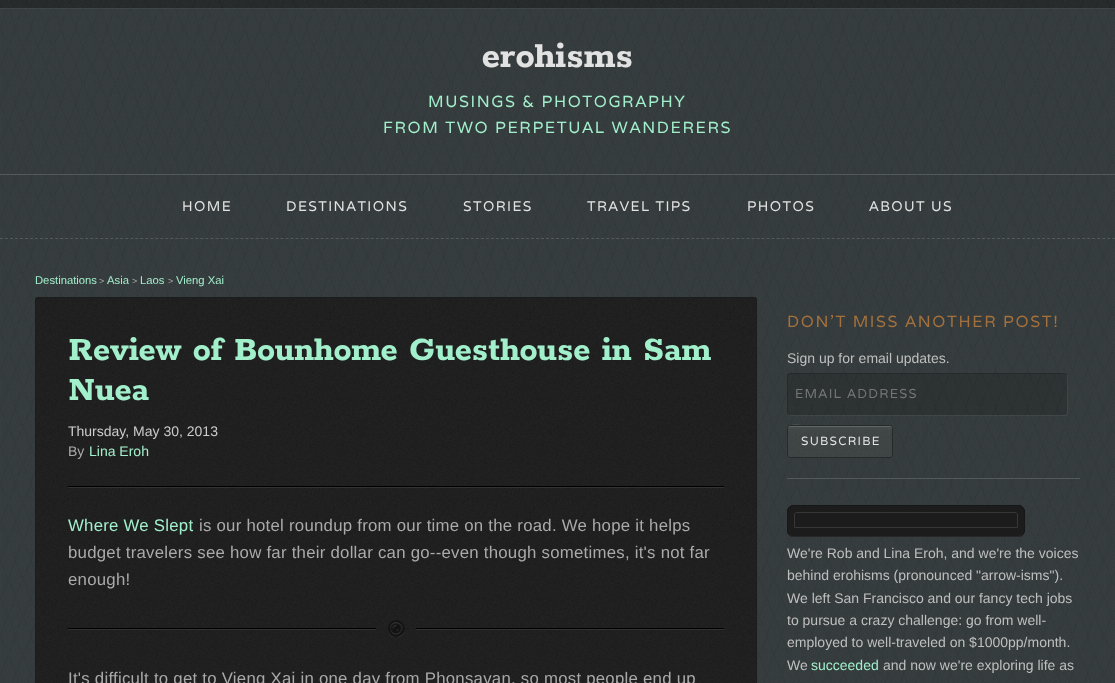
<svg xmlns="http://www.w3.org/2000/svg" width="1115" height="683">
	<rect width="100%" height="100%" fill="#FFFFFF" />
	<image x="0" y="0" width="1115" height="8" href="assets/img1.png" />
	<rect x="0" y="8" width="1115" height="675" fill="#373E3F" />
	<image x="0" y="8" width="1115" height="675" href="assets/img2.png" />
	<rect x="0" y="8" width="1115" height="1" fill="#FFFFFF" fill-opacity="0.05" />
	<text x="482" y="67" font-family="Rokkitt" font-size="39" font-weight="700" fill="#E2E2E2">erohisms</text>
	<g font-family="Varela" font-size="16.15" letter-spacing="1.6" fill="#A2EFCC">
		<text x="428" y="107">MUSINGS &amp; PHOTOGRAPHY</text>
		<text x="383" y="133">FROM TWO PERPETUAL WANDERERS</text>
	</g>
	<rect x="0" y="174" width="1115" height="1" fill="#FFFFFF" fill-opacity="0.15" />
	<path d="M0 238.5H1115" fill="none" stroke="#FFFFFF" stroke-opacity="0.15" stroke-dasharray="3 2.01" />
	<g font-family="Varela" font-size="14" letter-spacing="1.4" fill="#E2E2E2">
		<text x="182" y="211">HOME</text>
		<text x="286" y="211">DESTINATIONS</text>
		<text x="463" y="211">STORIES</text>
		<text x="587" y="211">TRAVEL TIPS</text>
		<text x="747" y="211">PHOTOS</text>
		<text x="869" y="211">ABOUT US</text>
	</g>
	<image x="35" y="297" width="722" height="386" href="assets/img3.png" />
	<rect x="35.5" y="297.5" width="721" height="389" rx="2.5" fill="none" stroke="#1C1C1C" />
	<rect x="68" y="487" width="656" height="1" fill="#333333" />
	<text x="35" y="284" font-family="Liberation Sans" font-size="11.25" fill="#A2EFCC">Destinations</text>
	<text x="99" y="284" font-family="Liberation Sans" font-size="9" fill="#AAAAAA">&gt;</text>
	<text x="107" y="284" font-family="Liberation Sans" font-size="11.25" fill="#A2EFCC">Asia</text>
	<text x="132" y="284" font-family="Liberation Sans" font-size="9" fill="#AAAAAA">&gt;</text>
	<text x="140" y="284" font-family="Liberation Sans" font-size="11.25" fill="#A2EFCC">Laos</text>
	<text x="168" y="284" font-family="Liberation Sans" font-size="9" fill="#AAAAAA">&gt;</text>
	<text x="176" y="284" font-family="Liberation Sans" font-size="11.25" fill="#A2EFCC">Vieng Xai</text>
	<g font-family="Rokkitt" font-size="36.6" font-weight="700" fill="#A2EFCC">
		<text x="68" y="360">Review of Bounhome Guesthouse in Sam</text>
		<text x="68" y="400">Nuea</text>
	</g>
	<text x="68" y="436" font-family="Liberation Sans" font-size="14" fill="#CCCCCC">Thursday, May 30, 2013</text>
	<text x="68" y="456" font-family="Liberation Sans" font-size="14" fill="#AAAAAA">By</text>
	<text x="89" y="456" font-family="Liberation Sans" font-size="14" fill="#A2EFCC">Lina Eroh</text>
	<rect x="68" y="486" width="656" height="1" fill="#000000" />
	<text x="68" y="531" font-family="Liberation Sans" font-size="16.8" letter-spacing="0.25" fill="#A2EFCC">Where We Slept</text>
	<g font-family="Liberation Sans" font-size="16.8" letter-spacing="0.25" fill="#AAAAAA">
		<text x="199" y="531">is our hotel roundup from our time on the road. We hope it helps</text>
		<text x="68" y="558">budget travelers see how far their dollar can go--even though sometimes, it's not far</text>
		<text x="68" y="585">enough!</text>
	</g>
	<image x="388" y="620" width="17" height="17" href="assets/img4.png" />
	<image x="68" y="628" width="308" height="2" href="assets/img5.png" />
	<image x="416" y="628" width="308" height="2" href="assets/img5.png" />
	<text x="68" y="684" font-family="Liberation Sans" font-size="16.8" letter-spacing="0.25" fill="#AAAAAA">It's difficult to get to Vieng Xai in one day from Phonsavan, so most people end up</text>
	<text x="787" y="327" font-family="Varela" font-size="16.15" letter-spacing="1.6" fill="#A4713C">DON'T MISS ANOTHER POST!</text>
	<text x="787" y="363" font-family="Liberation Sans" font-size="14" fill="#BFBFBF">Sign up for email updates.</text>
	<path d="M788 415C789 415 790 416 791 416H1065C1067 416 1068 415 1068 413V377C1068 376 1067 375 1067 374V376V412C1067 414 1066 415 1064 415H790Z" fill="#FFFFFF" fill-opacity="0.05" />
	<rect x="787" y="373" width="280" height="42" rx="3" fill="#000000" fill-opacity="0.16" />
	<path d="M790 373H1064C1066 373 1067 374 1067 376V412C1067 414 1066 415 1064 415H790C788 415 787 414 787 412V376C787 374 788 373 790 373ZM790 374H1064C1066 374 1067 375 1067 376V412C1067 414 1066 415 1064 415H790C789 415 788 414 788 412V376C788 375 789 374 790 374Z" fill="#000000" fill-opacity="0.16" fill-rule="evenodd" />
	<text x="795" y="398" font-family="Varela" font-size="13" letter-spacing="1.25" fill="#757575">EMAIL ADDRESS</text>
	<image x="787" y="425" width="106" height="33" href="assets/img6.png" />
	<path d="M790 427H890C891 427 892 428 892 429C892 428 892 426 890 426H807C806 426 788 421 788 429C788 428 789 427 790 427Z" fill="#FFFFFF" fill-opacity="0.15" />
	<rect x="787.5" y="425.5" width="105" height="32" rx="2.5" fill="none" stroke="#252B2B" />
	<text x="801" y="445" font-family="Varela" font-size="12" letter-spacing="1.25" fill="#E2E2E2">SUBSCRIBE</text>
	<rect x="787" y="478" width="293" height="1" fill="#FFFFFF" fill-opacity="0.15" />
	<rect x="787" y="505" width="238" height="32" rx="7" fill="#1C1C1C" />
	<path d="M788 529V530C788 534 791 537 794 537H1018C1021 537 1024 534 1024 530V529C1024 533 1021 536 1018 536H794C791 536 788 533 788 529Z" fill="#FFFFFF" fill-opacity="0.05" />
	<path d="M794 505H1018C1022 505 1025 508 1025 512V530C1025 534 1022 537 1018 537H794C790 537 787 534 787 530V512C787 508 790 505 794 505ZM794 506H1018C1021 506 1024 509 1024 512V530C1024 534 1021 537 1018 537H794C791 537 788 534 788 530V512C788 509 791 506 794 506Z" fill="#171717" fill-rule="evenodd" />
	<path d="M797 512.5H1015C1016.5 512.5 1017.5 513.5 1017.5 515V527.5H794.5V515C794.5 513.5 795.5 512.5 797 512.5Z" fill="none" stroke="#373737" />
	<g font-family="Liberation Sans" font-size="14" fill="#BFBFBF">
		<text x="787" y="558">We're Rob and Lina Eroh, and we're the voices</text>
		<text x="787" y="580">behind erohisms (pronounced "arrow-isms").</text>
		<text x="787" y="603">We left San Francisco and our fancy tech jobs</text>
		<text x="787" y="625">to pursue a crazy challenge: go from well-</text>
		<text x="787" y="647">employed to well-traveled on $1000pp/month.</text>
		<text x="787" y="670">We</text>
	</g>
	<text x="811" y="670" font-family="Liberation Sans" font-size="14" fill="#A2EFCC">succeeded</text>
	<text x="883" y="670" font-family="Liberation Sans" font-size="14" fill="#BFBFBF">and now we're exploring life as</text>
</svg>
